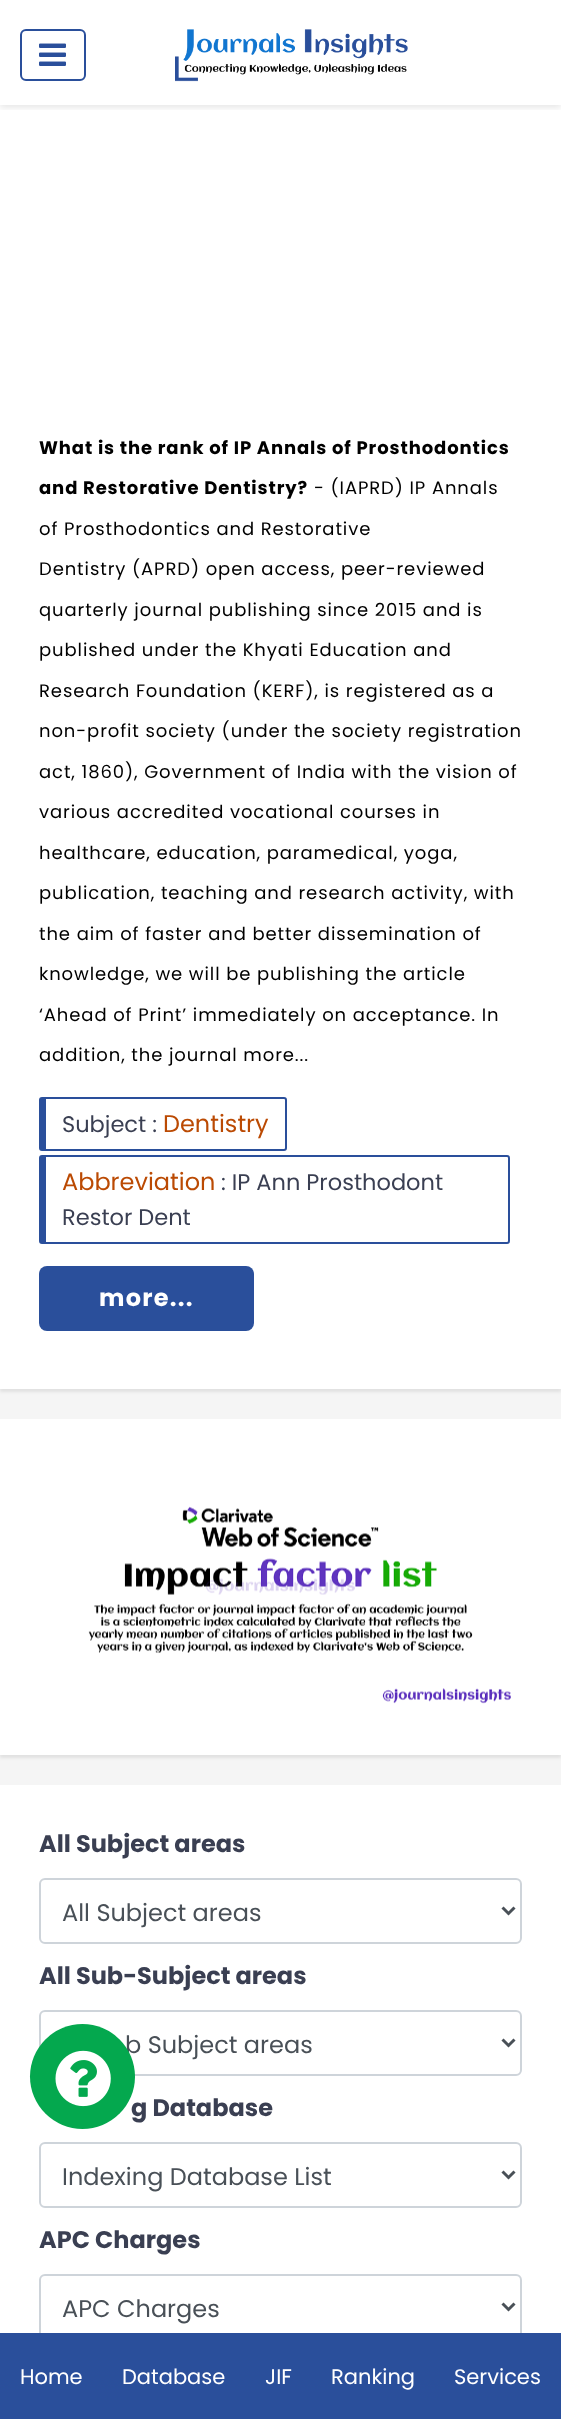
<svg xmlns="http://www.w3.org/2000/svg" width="561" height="2419">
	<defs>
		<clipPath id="clip1"><rect x="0" y="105" width="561" height="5" /></clipPath>
	</defs>
	<rect width="100%" height="100%" fill="#F5F5F5" />
	<rect x="0" y="-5" width="561" height="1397" fill="#000000" fill-opacity="0.08" filter="blur(1.5px)" />
	<rect x="0" y="0" width="561" height="1389" fill="#FFFFFF" />
	<g clip-path="url(#clip1)">
		<rect x="0" y="3" width="561" height="105" fill="#000000" fill-opacity="0.09" filter="blur(3px)" />
	</g>
	<rect x="21" y="30" width="64" height="50" rx="5" fill="none" stroke="#2A4F9B" stroke-width="2" />
	<image x="39" y="43" width="27" height="23" href="assets/img1.png" />
	<image x="175" y="29" width="233" height="53" href="assets/img2.png" />
	<g font-family="Poppins" font-size="18" font-weight="700" letter-spacing="0.9" fill="#000000">
		<text x="39" y="454">What is the rank of IP Annals of Prosthodontics</text>
		<text x="39" y="494">and Restorative Dentistry?</text>
	</g>
	<g font-family="Poppins" font-size="18" letter-spacing="0.9" fill="#000000">
		<text x="314" y="494">- (IAPRD) IP Annals</text>
		<text x="39" y="535">of Prosthodontics and Restorative</text>
		<text x="39" y="575">Dentistry (APRD) open access, peer-reviewed</text>
		<text x="39" y="616">quarterly journal publishing since 2015 and is</text>
		<text x="39" y="656">published under the Khyati Education and</text>
		<text x="39" y="697">Research Foundation (KERF), is registered as a</text>
		<text x="39" y="737">non-profit society (under the society registration</text>
		<text x="39" y="778">act, 1860), Government of India with the vision of</text>
		<text x="39" y="818">various accredited vocational courses in</text>
		<text x="39" y="859">healthcare, education, paramedical, yoga,</text>
		<text x="39" y="899">publication, teaching and research activity, with</text>
		<text x="39" y="940">the aim of faster and better dissemination of</text>
		<text x="39" y="980">knowledge, we will be publishing the article</text>
		<text x="39" y="1021">‘Ahead of Print’ immediately on acceptance. In</text>
		<text x="39" y="1061">addition, the journal more...</text>
	</g>
	<rect x="40" y="1098" width="246" height="52" rx="2" fill="none" stroke="#2A4F9B" stroke-width="2" />
	<rect x="41" y="1098" width="5" height="51" fill="#2A4F9B" />
	<text x="62" y="1132" font-family="Poppins" font-size="22.5" fill="#3A3F52">Subject :</text>
	<text x="163" y="1132" font-family="Poppins" font-size="24" fill="#BB4A03">Dentistry</text>
	<rect x="40" y="1156" width="469" height="87" rx="2" fill="none" stroke="#2A4F9B" stroke-width="2" />
	<rect x="41" y="1157" width="5" height="85" fill="#2A4F9B" />
	<text x="62" y="1190" font-family="Poppins" font-size="24" fill="#BB4A03">Abbreviation</text>
	<g font-family="Poppins" font-size="22.5" fill="#3A3F52">
		<text x="221" y="1190">: IP Ann Prosthodont</text>
		<text x="62" y="1225">Restor Dent</text>
	</g>
	<rect x="39" y="1266" width="215" height="65" rx="8" fill="#2A4F9B" />
	<text x="99" y="1306" font-family="Poppins" font-size="24" font-weight="700" letter-spacing="1.25" fill="#FFFFFF">more...</text>
	<rect x="0" y="1422" width="561" height="336" fill="#000000" fill-opacity="0.08" filter="blur(1.5px)" />
	<rect x="0" y="1419" width="561" height="336" fill="#FFFFFF" />
	<image x="88" y="1506" width="423" height="198" href="assets/img3.png" />
	<rect x="0" y="1785" width="561" height="548" fill="#FFFFFF" />
	<text x="39" y="1852" font-family="Poppins" font-size="24" font-weight="700" fill="#3A3F52">All Subject areas</text>
	<rect x="40" y="1879" width="481" height="64" rx="5" fill="none" stroke="#CED4DA" stroke-width="2" />
	<path d="M502.5 1907.5L508.5 1913.5L514.5 1907.5" fill="none" stroke="#495057" stroke-width="3" />
	<text x="62" y="1921" font-family="Poppins" font-size="24" fill="#495057">All Subject areas</text>
	<text x="39" y="1984" font-family="Poppins" font-size="24" font-weight="700" fill="#3A3F52">All Sub-Subject areas</text>
	<rect x="40" y="2011" width="481" height="64" rx="5" fill="none" stroke="#CED4DA" stroke-width="2" />
	<path d="M502.5 2039.5L508.5 2045.5L514.5 2039.5" fill="none" stroke="#495057" stroke-width="3" />
	<text x="125" y="2053" font-family="Poppins" font-size="24" fill="#495057">b Subject areas</text>
	<text x="131" y="2116" font-family="Poppins" font-size="24" font-weight="700" fill="#3A3F52">g Database</text>
	<rect x="40" y="2143" width="481" height="64" rx="5" fill="none" stroke="#CED4DA" stroke-width="2" />
	<path d="M502.5 2171.5L508.5 2177.5L514.5 2171.5" fill="none" stroke="#495057" stroke-width="3" />
	<text x="62" y="2185" font-family="Poppins" font-size="24" fill="#495057">Indexing Database List</text>
	<text x="39" y="2248" font-family="Poppins" font-size="24" font-weight="700" fill="#3A3F52">APC Charges</text>
	<rect x="40" y="2275" width="481" height="64" rx="5" fill="none" stroke="#CED4DA" stroke-width="2" />
	<path d="M502.5 2303.5L508.5 2309.5L514.5 2303.5" fill="none" stroke="#495057" stroke-width="3" />
	<text x="62" y="2317" font-family="Poppins" font-size="24" fill="#495057">APC Charges</text>
	<circle cx="82.5" cy="2076.5" r="52.5" fill="#04A84E" />
	<image x="55" y="2050" width="56" height="57" href="assets/img4.png" />
	<rect x="0" y="2333" width="561" height="86" fill="#2A4F9B" />
	<g font-family="Poppins" font-size="21" fill="#FFFFFF">
		<text x="20" y="2384">Home</text>
		<text x="122" y="2384">Database</text>
		<text x="265" y="2384">JIF</text>
		<text x="331" y="2384">Ranking</text>
		<text x="454" y="2384">Services</text>
	</g>
</svg>
